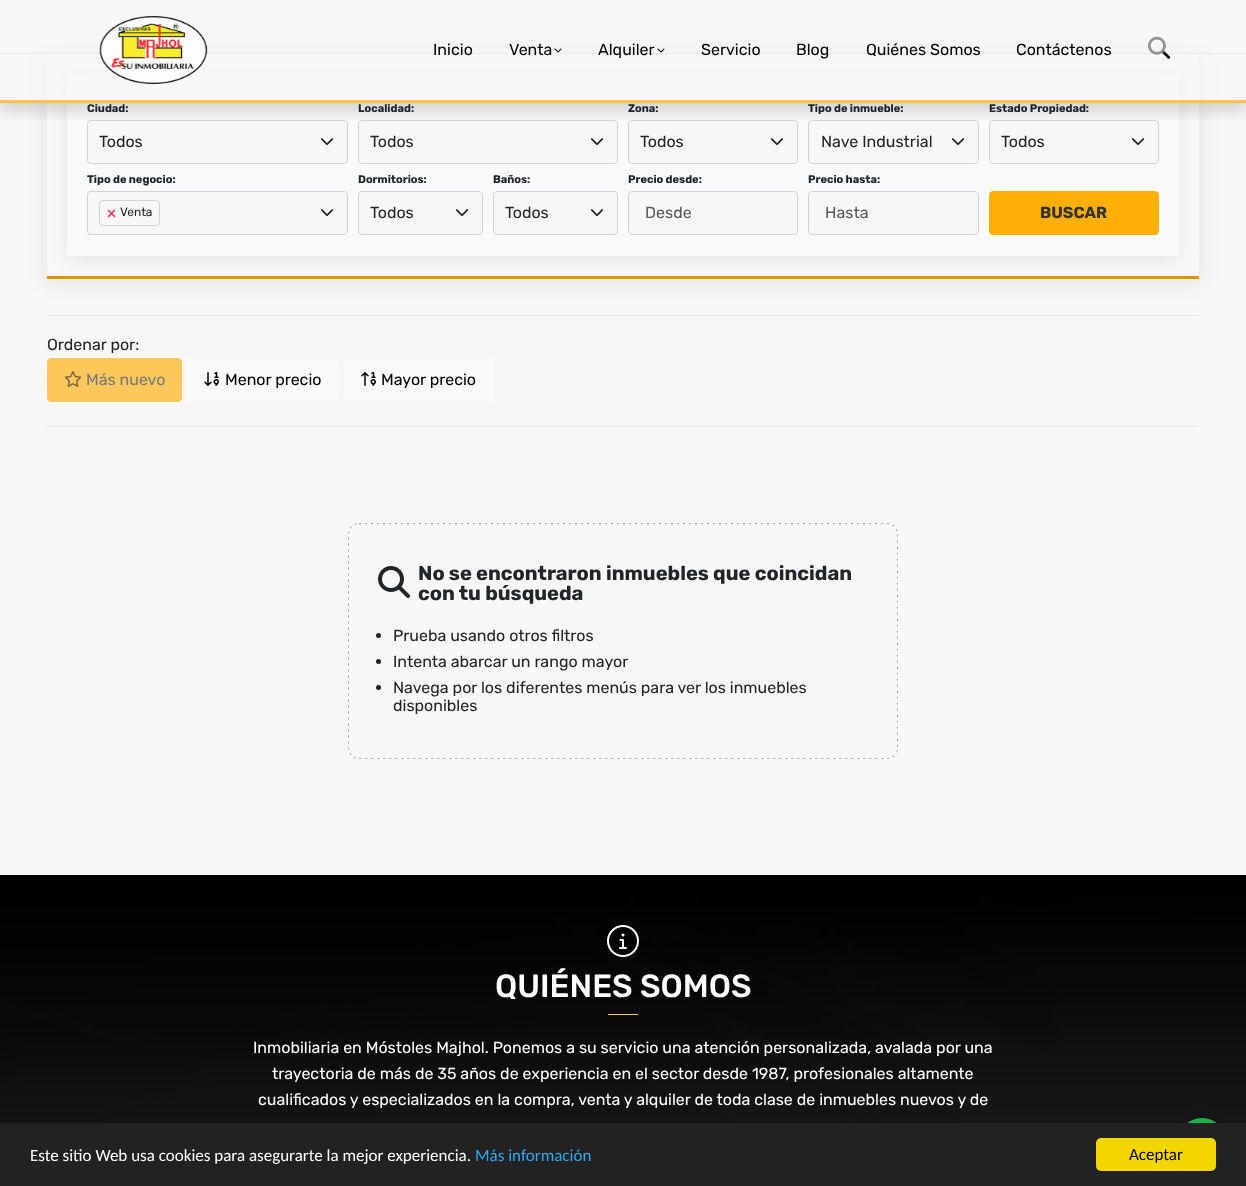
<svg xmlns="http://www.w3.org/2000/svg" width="1246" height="1186">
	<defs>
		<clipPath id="clip1"><path d="M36 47H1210V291H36ZM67 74H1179V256H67Z" clip-rule="evenodd" /></clipPath>
		<clipPath id="clip2"><rect x="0" y="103" width="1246" height="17" /></clipPath>
		<linearGradient id="g1" gradientUnits="userSpaceOnUse" x1="297" y1="213" x2="347" y2="213"><stop offset="0" stop-color="#F7F7F7" stop-opacity="0" /><stop offset="0.4" stop-color="#F7F7F7" /></linearGradient>
	</defs>
	<rect width="100%" height="100%" fill="#F7F7F7" />
	<rect x="0" y="53" width="1246" height="1" fill="#D2D2D2" />
	<rect x="47" y="58" width="1152" height="225" fill="#000000" fill-opacity="0.09" filter="blur(10px)" />
	<rect x="47" y="54" width="1152" height="222" fill="#F8F9FA" />
	<rect x="47" y="276" width="1152" height="3" fill="#DE9600" />
	<g clip-path="url(#clip1)">
		<rect x="67" y="78" width="1112" height="182" fill="#000000" fill-opacity="0.09" filter="blur(10px)" />
	</g>
	<rect x="87.5" y="120.5" width="260" height="43" rx="3.5" fill="#F7F7F7" stroke="#CED4DA" />
	<rect x="358.5" y="120.5" width="259" height="43" rx="3.5" fill="#F7F7F7" stroke="#CED4DA" />
	<rect x="628.5" y="120.5" width="169" height="43" rx="3.5" fill="#F7F7F7" stroke="#CED4DA" />
	<rect x="808.5" y="120.5" width="170" height="43" rx="3.5" fill="#F7F7F7" stroke="#CED4DA" />
	<rect x="989.5" y="120.5" width="169" height="43" rx="3.5" fill="#F7F7F7" stroke="#CED4DA" />
	<g clip-path="url(#clip2)">
		<rect x="0" y="8" width="1246" height="103" fill="#000000" fill-opacity="0.15" filter="blur(8px)" />
	</g>
	<rect x="0" y="48" width="1246" height="52" fill="#F7F7F7" fill-opacity="0.7" />
	<rect x="0" y="100" width="1246" height="3" fill="#FFC345" />
	<image x="99" y="16" width="109" height="68" href="assets/img1.png" />
	<g font-family="Rubik" font-size="16" fill="#000000">
		<text x="433" y="55">Inicio</text>
		<text x="509" y="55">Venta</text>
	</g>
	<image x="554" y="48" width="8" height="5" href="assets/img2.png" />
	<text x="598" y="55" font-family="Rubik" font-size="16" fill="#000000">Alquiler</text>
	<image x="657" y="48" width="8" height="5" href="assets/img2.png" />
	<g font-family="Rubik" font-size="16" fill="#000000">
		<text x="701" y="55">Servicio</text>
		<text x="796" y="55">Blog</text>
		<text x="866" y="55">Quiénes Somos</text>
		<text x="1016" y="55">Contáctenos</text>
	</g>
	<image x="1162" y="51" width="8" height="8" href="assets/img4.png" />
	<image x="1148" y="36" width="18" height="19" href="assets/img3.png" />
	<text x="87" y="112" font-family="Rubik" font-size="11" font-weight="700" fill="#212529">Ciudad:</text>
	<text x="99" y="147" font-family="Rubik" font-size="16" fill="#212529">Todos</text>
	<image x="321" y="138" width="12" height="7" href="assets/img5.png" />
	<text x="358" y="112" font-family="Rubik" font-size="11" font-weight="700" fill="#212529">Localidad:</text>
	<text x="370" y="147" font-family="Rubik" font-size="16" fill="#212529">Todos</text>
	<image x="591" y="138" width="12" height="7" href="assets/img5.png" />
	<text x="628" y="112" font-family="Rubik" font-size="11" font-weight="700" fill="#212529">Zona:</text>
	<text x="640" y="147" font-family="Rubik" font-size="16" fill="#212529">Todos</text>
	<image x="771" y="138" width="12" height="7" href="assets/img5.png" />
	<text x="808" y="112" font-family="Rubik" font-size="11" font-weight="700" fill="#212529">Tipo de inmueble:</text>
	<text x="821" y="147" font-family="Rubik" font-size="16" fill="#212529">Nave Industrial</text>
	<image x="952" y="138" width="12" height="7" href="assets/img5.png" />
	<text x="989" y="112" font-family="Rubik" font-size="11" font-weight="700" fill="#212529">Estado Propiedad:</text>
	<text x="1001" y="147" font-family="Rubik" font-size="16" fill="#212529">Todos</text>
	<image x="1132" y="138" width="12" height="7" href="assets/img5.png" />
	<text x="87" y="183" font-family="Rubik" font-size="11" font-weight="700" fill="#212529">Tipo de negocio:</text>
	<rect x="87.5" y="191.5" width="260" height="43" rx="3.5" fill="#F7F7F7" stroke="#CED4DA" />
	<rect x="99.5" y="200.5" width="60" height="25" rx="3.5" fill="none" stroke="#CED4DA" />
	<image x="107" y="209" width="9" height="9" href="assets/img6.png" />
	<text x="120" y="216" font-family="Rubik" font-size="12" fill="#212529">Venta</text>
	<path d="M297 192H343C345 192 347 194 347 196V230C347 232 345 234 343 234H297Z" fill="url(#g1)" />
	<image x="321" y="209" width="12" height="7" href="assets/img5.png" />
	<text x="358" y="183" font-family="Rubik" font-size="11" font-weight="700" fill="#212529">Dormitorios:</text>
	<rect x="358.5" y="191.5" width="124" height="43" rx="3.5" fill="#F7F7F7" stroke="#CED4DA" />
	<text x="370" y="218" font-family="Rubik" font-size="16" fill="#212529">Todos</text>
	<image x="456" y="209" width="12" height="7" href="assets/img5.png" />
	<text x="493" y="183" font-family="Rubik" font-size="11" font-weight="700" fill="#212529">Baños:</text>
	<rect x="493.5" y="191.5" width="124" height="43" rx="3.5" fill="#F7F7F7" stroke="#CED4DA" />
	<text x="505" y="218" font-family="Rubik" font-size="16" fill="#212529">Todos</text>
	<image x="591" y="209" width="12" height="7" href="assets/img5.png" />
	<text x="628" y="183" font-family="Rubik" font-size="11" font-weight="700" fill="#212529">Precio desde:</text>
	<rect x="628.5" y="191.5" width="169" height="43" rx="3.5" fill="#F7F7F7" stroke="#CED4DA" />
	<text x="645" y="218" font-family="Rubik" font-size="16" fill="#575A5D">Desde</text>
	<text x="808" y="183" font-family="Rubik" font-size="11" font-weight="700" fill="#212529">Precio hasta:</text>
	<rect x="808.5" y="191.5" width="170" height="43" rx="3.5" fill="#F7F7F7" stroke="#CED4DA" />
	<text x="825" y="218" font-family="Rubik" font-size="16" fill="#575A5D">Hasta</text>
	<rect x="989.5" y="191.5" width="169" height="43" rx="3.5" fill="#FFAF08" stroke="#FFAF08" />
	<text x="1040" y="218" font-family="Rubik" font-size="16" font-weight="700" fill="#333333">BUSCAR</text>
	<rect x="47" y="315" width="1152" height="1" fill="#E6E8EA" />
	<text x="47" y="350" font-family="Rubik" font-size="16" fill="#212529">Ordenar por:</text>
	<rect x="47.5" y="358.5" width="134" height="43" rx="3.5" fill="#FCC85C" stroke="#FCC85C" />
	<image x="64" y="371" width="18" height="16" href="assets/img7.png" />
	<text x="86" y="385" font-family="Rubik" font-size="16" fill="#787878">Más nuevo</text>
	<rect x="186" y="358" width="153" height="44" rx="4" fill="#F8F9FA" />
	<image x="204" y="372" width="15" height="14" href="assets/img8.png" />
	<text x="225" y="385" font-family="Rubik" font-size="16" fill="#000000">Menor precio</text>
	<rect x="343" y="358" width="151" height="44" rx="4" fill="#F8F9FA" />
	<image x="361" y="372" width="15" height="14" href="assets/img9.png" />
	<text x="381" y="385" font-family="Rubik" font-size="16" fill="#000000">Mayor precio</text>
	<rect x="47" y="426" width="1152" height="1" fill="#E6E8EA" />
	<image x="348" y="523" width="550" height="236" href="assets/img10.png" />
	<image x="378" y="566" width="32" height="32" href="assets/img11.png" />
	<g font-family="Rubik" font-size="20" font-weight="700" fill="#212529">
		<text x="418" y="580">No se encontraron inmuebles que coincidan</text>
		<text x="418" y="600">con tu búsqueda</text>
	</g>
	<circle cx="378.5" cy="635.5" r="2.5" fill="#212529" />
	<text x="393" y="641" font-family="Rubik" font-size="16" fill="#212529">Prueba usando otros filtros</text>
	<circle cx="378.5" cy="661.5" r="2.5" fill="#212529" />
	<text x="393" y="667" font-family="Rubik" font-size="16" fill="#212529">Intenta abarcar un rango mayor</text>
	<circle cx="378.5" cy="687.5" r="2.5" fill="#212529" />
	<g font-family="Rubik" font-size="16" fill="#212529">
		<text x="393" y="693">Navega por los diferentes menús para ver los inmuebles</text>
		<text x="393" y="711">disponibles</text>
	</g>
	<image x="0" y="875" width="1246" height="248" href="assets/img12.png" />
	<image x="607" y="925" width="32" height="32" href="assets/img13.png" />
	<text x="495" y="997" font-family="Rubik" font-size="32" font-weight="500" fill="#FFFFFF">QUIÉNES SOMOS</text>
	<rect x="608" y="1014" width="30" height="1" fill="#FFC345" />
	<g font-family="Rubik" font-size="16" fill="#FFFFFF">
		<text x="253" y="1053">Inmobiliaria en Móstoles Majhol. Ponemos a su servicio una atención personalizada, avalada por una</text>
		<text x="272" y="1079">trayectoria de más de 35 años de experiencia en el sector desde 1987, profesionales altamente</text>
		<text x="258" y="1105">cualificados y especializados en la compra, venta y alquiler de toda clase de inmuebles nuevos y de</text>
	</g>
	<rect x="1178" y="1118" width="48" height="48" rx="24" fill="#000000" fill-opacity="0.2" filter="blur(3px)" />
	<circle cx="1202" cy="1142" r="24" fill="#1BB24E" />
	<rect x="0" y="1123" width="1246" height="63" fill="#222222" />
	<text x="30" y="1161" font-family="Carlito" font-size="17" fill="#FFFFFF">Este sitio Web usa cookies para asegurarte la mejor experiencia.</text>
	<text x="475" y="1161" font-family="Carlito" font-size="17" fill="#31A8F0">Más información</text>
	<rect x="1096" y="1138" width="120" height="33" rx="5" fill="#F1D600" />
	<text x="1129" y="1160" font-family="Carlito" font-size="17" fill="#000000">Aceptar</text>
</svg>
